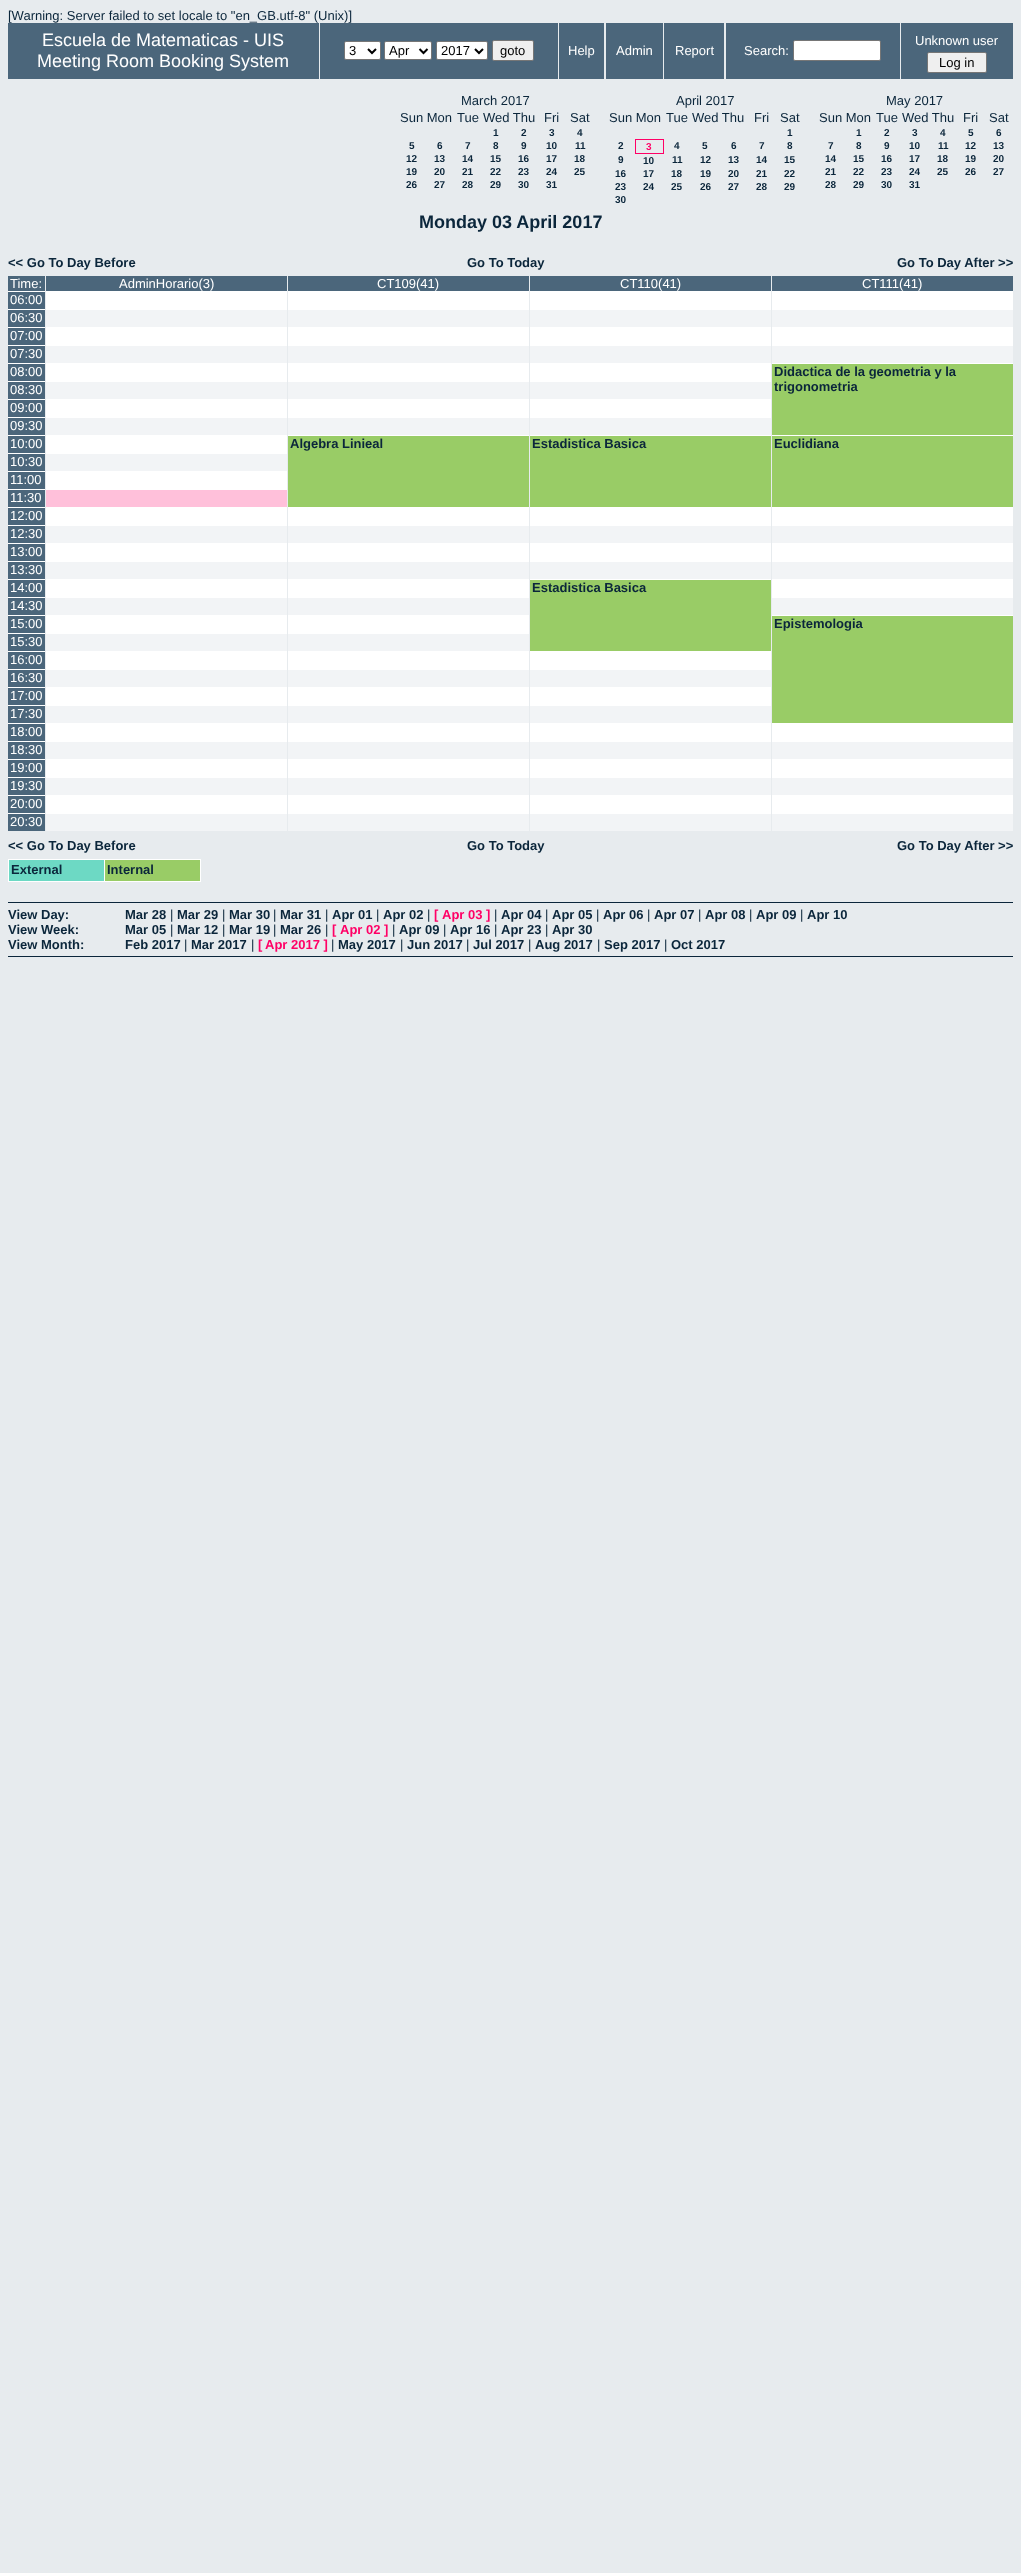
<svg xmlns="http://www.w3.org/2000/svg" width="1021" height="2573">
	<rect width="100%" height="100%" fill="#E7EBEE" />
	<text x="8" y="20" font-family="Liberation Sans" font-size="13" fill="#0B263B">[Warning: Server failed to set locale to "en_GB.utf-8" (Unix)]</text>
	<rect x="8" y="23" width="311" height="56" fill="#4B667B" />
	<g font-family="Liberation Sans" font-size="18" fill="#FFFFFF">
		<text x="42" y="46">Escuela de Matematicas - UIS</text>
		<text x="37" y="67">Meeting Room Booking System</text>
	</g>
	<rect x="320" y="23" width="238" height="56" fill="#4B667B" />
	<rect x="344.5" y="41.5" width="36" height="18" rx="1.5" fill="#FFFFFF" stroke="#767676" />
	<path d="M368 49L372 53L376 49" fill="none" stroke="#000000" stroke-width="2" />
	<text x="349" y="55" font-family="Liberation Sans" font-size="13" fill="#000000">3</text>
	<rect x="384.5" y="41.5" width="47" height="18" rx="1.5" fill="#FFFFFF" stroke="#767676" />
	<path d="M419.5 49L423.5 53L427.5 49" fill="none" stroke="#000000" stroke-width="2" />
	<text x="389" y="55" font-family="Liberation Sans" font-size="13" fill="#000000">Apr</text>
	<rect x="436.5" y="41.5" width="51" height="18" rx="1.5" fill="#FFFFFF" stroke="#767676" />
	<path d="M475 49L479 53L483 49" fill="none" stroke="#000000" stroke-width="2" />
	<text x="441" y="55" font-family="Liberation Sans" font-size="13" fill="#000000">2017</text>
	<rect x="492.5" y="40.5" width="41" height="20" rx="1.5" fill="#EFEFEF" stroke="#767676" />
	<text x="500" y="55" font-family="Liberation Sans" font-size="13" fill="#000000">goto</text>
	<rect x="559" y="23" width="45" height="56" fill="#4B667B" />
	<text x="568" y="55" font-family="Liberation Sans" font-size="13" fill="#FFFFFF">Help</text>
	<rect x="606" y="23" width="57" height="56" fill="#4B667B" />
	<text x="616" y="55" font-family="Liberation Sans" font-size="13" fill="#FFFFFF">Admin</text>
	<rect x="664" y="23" width="60" height="56" fill="#4B667B" />
	<text x="675" y="55" font-family="Liberation Sans" font-size="13" fill="#FFFFFF">Report</text>
	<rect x="726" y="23" width="174" height="56" fill="#4B667B" />
	<text x="744" y="55" font-family="Liberation Sans" font-size="13" fill="#FFFFFF">Search:</text>
	<rect x="793.5" y="40.5" width="87" height="20" rx="1.5" fill="#FFFFFF" stroke="#767676" />
	<rect x="901" y="23" width="112" height="56" fill="#4B667B" />
	<text x="915" y="45" font-family="Liberation Sans" font-size="13" fill="#FFFFFF">Unknown user</text>
	<rect x="927.5" y="52.5" width="59" height="20" rx="1.5" fill="#EFEFEF" stroke="#767676" />
	<text x="939" y="67" font-family="Liberation Sans" font-size="13" fill="#000000">Log in</text>
	<g font-family="Liberation Sans" font-size="13" fill="#0B263B">
		<text x="461" y="105">March 2017</text>
		<text x="400" y="122">Sun Mon</text>
		<text x="457" y="122">Tue</text>
		<text x="483" y="122">Wed Thu</text>
		<text x="544" y="122">Fri</text>
		<text x="570" y="122">Sat</text>
	</g>
	<g font-family="Liberation Sans" font-size="10" font-weight="700" fill="#0B263B">
		<text x="493" y="136">1</text>
		<text x="521" y="136">2</text>
		<text x="549" y="136">3</text>
		<text x="577" y="136">4</text>
		<text x="409" y="149">5</text>
		<text x="437" y="149">6</text>
		<text x="465" y="149">7</text>
		<text x="493" y="149">8</text>
		<text x="521" y="149">9</text>
		<text x="546" y="149">10</text>
		<text x="575" y="149">11</text>
		<text x="406" y="162">12</text>
		<text x="434" y="162">13</text>
		<text x="462" y="162">14</text>
		<text x="490" y="162">15</text>
		<text x="518" y="162">16</text>
		<text x="546" y="162">17</text>
		<text x="574" y="162">18</text>
		<text x="406" y="175">19</text>
		<text x="434" y="175">20</text>
		<text x="462" y="175">21</text>
		<text x="490" y="175">22</text>
		<text x="518" y="175">23</text>
		<text x="546" y="175">24</text>
		<text x="574" y="175">25</text>
		<text x="406" y="188">26</text>
		<text x="434" y="188">27</text>
		<text x="462" y="188">28</text>
		<text x="490" y="188">29</text>
		<text x="518" y="188">30</text>
		<text x="546" y="188">31</text>
	</g>
	<g font-family="Liberation Sans" font-size="13" fill="#0B263B">
		<text x="676" y="105">April 2017</text>
		<text x="609" y="122">Sun Mon</text>
		<text x="666" y="122">Tue</text>
		<text x="692" y="122">Wed Thu</text>
		<text x="754" y="122">Fri</text>
		<text x="780" y="122">Sat</text>
	</g>
	<g font-family="Liberation Sans" font-size="10" font-weight="700" fill="#0B263B">
		<text x="787" y="136">1</text>
		<text x="618" y="149">2</text>
	</g>
	<rect x="635" y="139" width="29" height="1" fill="#FF0066" />
	<rect x="663" y="139" width="1" height="15" fill="#FF0066" />
	<rect x="635" y="153" width="29" height="1" fill="#FF0066" />
	<rect x="635" y="139" width="1" height="15" fill="#FF0066" />
	<text x="646" y="150" font-family="Liberation Sans" font-size="10" font-weight="700" fill="#FF0066">3</text>
	<g font-family="Liberation Sans" font-size="10" font-weight="700" fill="#0B263B">
		<text x="674" y="149">4</text>
		<text x="702" y="149">5</text>
		<text x="731" y="149">6</text>
		<text x="759" y="149">7</text>
		<text x="787" y="149">8</text>
		<text x="618" y="163">9</text>
		<text x="643" y="164">10</text>
		<text x="672" y="163">11</text>
		<text x="700" y="163">12</text>
		<text x="728" y="163">13</text>
		<text x="756" y="163">14</text>
		<text x="784" y="163">15</text>
		<text x="615" y="177">16</text>
		<text x="643" y="177">17</text>
		<text x="671" y="177">18</text>
		<text x="700" y="177">19</text>
		<text x="728" y="177">20</text>
		<text x="756" y="177">21</text>
		<text x="784" y="177">22</text>
		<text x="615" y="190">23</text>
		<text x="643" y="190">24</text>
		<text x="671" y="190">25</text>
		<text x="700" y="190">26</text>
		<text x="728" y="190">27</text>
		<text x="756" y="190">28</text>
		<text x="784" y="190">29</text>
		<text x="615" y="203">30</text>
	</g>
	<g font-family="Liberation Sans" font-size="13" fill="#0B263B">
		<text x="886" y="105">May 2017</text>
		<text x="819" y="122">Sun Mon</text>
		<text x="876" y="122">Tue</text>
		<text x="902" y="122">Wed Thu</text>
		<text x="963" y="122">Fri</text>
		<text x="989" y="122">Sat</text>
	</g>
	<g font-family="Liberation Sans" font-size="10" font-weight="700" fill="#0B263B">
		<text x="856" y="136">1</text>
		<text x="884" y="136">2</text>
		<text x="912" y="136">3</text>
		<text x="940" y="136">4</text>
		<text x="968" y="136">5</text>
		<text x="996" y="136">6</text>
		<text x="828" y="149">7</text>
		<text x="856" y="149">8</text>
		<text x="884" y="149">9</text>
		<text x="909" y="149">10</text>
		<text x="938" y="149">11</text>
		<text x="965" y="149">12</text>
		<text x="993" y="149">13</text>
		<text x="825" y="162">14</text>
		<text x="853" y="162">15</text>
		<text x="881" y="162">16</text>
		<text x="909" y="162">17</text>
		<text x="937" y="162">18</text>
		<text x="965" y="162">19</text>
		<text x="993" y="162">20</text>
		<text x="825" y="175">21</text>
		<text x="853" y="175">22</text>
		<text x="881" y="175">23</text>
		<text x="909" y="175">24</text>
		<text x="937" y="175">25</text>
		<text x="965" y="175">26</text>
		<text x="993" y="175">27</text>
		<text x="825" y="188">28</text>
		<text x="853" y="188">29</text>
		<text x="881" y="188">30</text>
		<text x="909" y="188">31</text>
	</g>
	<text x="419" y="228" font-family="Liberation Sans" font-size="18" font-weight="700" fill="#0B263B">Monday 03 April 2017</text>
	<g font-family="Liberation Sans" font-size="13" font-weight="700" fill="#0B263B">
		<text x="8" y="267">&lt;&lt; Go To Day Before</text>
		<text x="467" y="267">Go To Today</text>
		<text x="897" y="267">Go To Day After &gt;&gt;</text>
	</g>
	<rect x="8" y="276" width="37" height="15" fill="#4B667B" />
	<text x="10" y="288" font-family="Liberation Sans" font-size="13" fill="#FFFFFF">Time:</text>
	<rect x="46" y="276" width="241" height="15" fill="#4B667B" />
	<text x="119" y="288" font-family="Liberation Sans" font-size="13" fill="#FFFFFF">AdminHorario(3)</text>
	<rect x="288" y="276" width="241" height="15" fill="#4B667B" />
	<text x="377" y="288" font-family="Liberation Sans" font-size="13" fill="#FFFFFF">CT109(41)</text>
	<rect x="530" y="276" width="241" height="15" fill="#4B667B" />
	<text x="620" y="288" font-family="Liberation Sans" font-size="13" fill="#FFFFFF">CT110(41)</text>
	<rect x="772" y="276" width="241" height="15" fill="#4B667B" />
	<text x="862" y="288" font-family="Liberation Sans" font-size="13" fill="#FFFFFF">CT111(41)</text>
	<rect x="8" y="292" width="37" height="17" fill="#4B667B" />
	<rect x="8" y="291" width="37" height="1" fill="#FFFFFF" />
	<text x="10" y="304" font-family="Liberation Sans" font-size="13" fill="#FFFFFF">06:00</text>
	<rect x="46" y="291" width="241" height="18" fill="#FFFFFF" />
	<rect x="288" y="291" width="241" height="18" fill="#FFFFFF" />
	<rect x="530" y="291" width="241" height="18" fill="#FFFFFF" />
	<rect x="772" y="291" width="241" height="18" fill="#FFFFFF" />
	<rect x="8" y="310" width="37" height="17" fill="#4B667B" />
	<rect x="8" y="309" width="1005" height="1" fill="#FFFFFF" />
	<text x="10" y="322" font-family="Liberation Sans" font-size="13" fill="#FFFFFF">06:30</text>
	<rect x="46" y="310" width="241" height="17" fill="#F2F4F6" />
	<rect x="45" y="309" width="1" height="1" fill="#E7EBEE" />
	<rect x="288" y="310" width="241" height="17" fill="#F2F4F6" />
	<rect x="287" y="309" width="1" height="1" fill="#E7EBEE" />
	<rect x="530" y="310" width="241" height="17" fill="#F2F4F6" />
	<rect x="529" y="309" width="1" height="1" fill="#E7EBEE" />
	<rect x="772" y="310" width="241" height="17" fill="#F2F4F6" />
	<rect x="771" y="309" width="1" height="1" fill="#E7EBEE" />
	<rect x="8" y="328" width="37" height="17" fill="#4B667B" />
	<rect x="8" y="327" width="37" height="1" fill="#FFFFFF" />
	<text x="10" y="340" font-family="Liberation Sans" font-size="13" fill="#FFFFFF">07:00</text>
	<rect x="46" y="327" width="241" height="18" fill="#FFFFFF" />
	<rect x="288" y="327" width="241" height="18" fill="#FFFFFF" />
	<rect x="530" y="327" width="241" height="18" fill="#FFFFFF" />
	<rect x="772" y="327" width="241" height="18" fill="#FFFFFF" />
	<rect x="8" y="346" width="37" height="17" fill="#4B667B" />
	<rect x="8" y="345" width="1005" height="1" fill="#FFFFFF" />
	<text x="10" y="358" font-family="Liberation Sans" font-size="13" fill="#FFFFFF">07:30</text>
	<rect x="46" y="346" width="241" height="17" fill="#F2F4F6" />
	<rect x="45" y="345" width="1" height="1" fill="#E7EBEE" />
	<rect x="288" y="346" width="241" height="17" fill="#F2F4F6" />
	<rect x="287" y="345" width="1" height="1" fill="#E7EBEE" />
	<rect x="530" y="346" width="241" height="17" fill="#F2F4F6" />
	<rect x="529" y="345" width="1" height="1" fill="#E7EBEE" />
	<rect x="772" y="346" width="241" height="17" fill="#F2F4F6" />
	<rect x="771" y="345" width="1" height="1" fill="#E7EBEE" />
	<rect x="8" y="364" width="37" height="17" fill="#4B667B" />
	<rect x="8" y="363" width="37" height="1" fill="#FFFFFF" />
	<text x="10" y="376" font-family="Liberation Sans" font-size="13" fill="#FFFFFF">08:00</text>
	<rect x="46" y="363" width="241" height="18" fill="#FFFFFF" />
	<rect x="288" y="363" width="241" height="18" fill="#FFFFFF" />
	<rect x="530" y="363" width="241" height="18" fill="#FFFFFF" />
	<rect x="772" y="364" width="241" height="71" fill="#99CC66" />
	<rect x="771" y="363" width="242" height="1" fill="#FFFFFF" />
	<rect x="771" y="363" width="1" height="1" fill="#E7EBEE" />
	<g font-family="Liberation Sans" font-size="13" font-weight="700" fill="#0B263B">
		<text x="774" y="376">Didactica de la geometria y la</text>
		<text x="774" y="391">trigonometria</text>
	</g>
	<rect x="8" y="382" width="37" height="17" fill="#4B667B" />
	<rect x="8" y="381" width="763" height="1" fill="#FFFFFF" />
	<text x="10" y="394" font-family="Liberation Sans" font-size="13" fill="#FFFFFF">08:30</text>
	<rect x="46" y="382" width="241" height="17" fill="#F2F4F6" />
	<rect x="45" y="381" width="1" height="1" fill="#E7EBEE" />
	<rect x="288" y="382" width="241" height="17" fill="#F2F4F6" />
	<rect x="287" y="381" width="1" height="1" fill="#E7EBEE" />
	<rect x="530" y="382" width="241" height="17" fill="#F2F4F6" />
	<rect x="529" y="381" width="1" height="1" fill="#E7EBEE" />
	<rect x="8" y="400" width="37" height="17" fill="#4B667B" />
	<rect x="8" y="399" width="37" height="1" fill="#FFFFFF" />
	<text x="10" y="412" font-family="Liberation Sans" font-size="13" fill="#FFFFFF">09:00</text>
	<rect x="46" y="399" width="241" height="18" fill="#FFFFFF" />
	<rect x="288" y="399" width="241" height="18" fill="#FFFFFF" />
	<rect x="530" y="399" width="241" height="18" fill="#FFFFFF" />
	<rect x="8" y="418" width="37" height="17" fill="#4B667B" />
	<rect x="8" y="417" width="763" height="1" fill="#FFFFFF" />
	<text x="10" y="430" font-family="Liberation Sans" font-size="13" fill="#FFFFFF">09:30</text>
	<rect x="46" y="418" width="241" height="17" fill="#F2F4F6" />
	<rect x="45" y="417" width="1" height="1" fill="#E7EBEE" />
	<rect x="288" y="418" width="241" height="17" fill="#F2F4F6" />
	<rect x="287" y="417" width="1" height="1" fill="#E7EBEE" />
	<rect x="530" y="418" width="241" height="17" fill="#F2F4F6" />
	<rect x="529" y="417" width="1" height="1" fill="#E7EBEE" />
	<rect x="8" y="436" width="37" height="17" fill="#4B667B" />
	<rect x="8" y="435" width="37" height="1" fill="#FFFFFF" />
	<text x="10" y="448" font-family="Liberation Sans" font-size="13" fill="#FFFFFF">10:00</text>
	<rect x="46" y="435" width="241" height="18" fill="#FFFFFF" />
	<rect x="288" y="436" width="241" height="71" fill="#99CC66" />
	<rect x="287" y="435" width="726" height="1" fill="#FFFFFF" />
	<rect x="287" y="435" width="1" height="1" fill="#E7EBEE" />
	<text x="290" y="448" font-family="Liberation Sans" font-size="13" font-weight="700" fill="#0B263B">Algebra Linieal</text>
	<rect x="530" y="436" width="241" height="71" fill="#99CC66" />
	<rect x="529" y="435" width="1" height="1" fill="#E7EBEE" />
	<text x="532" y="448" font-family="Liberation Sans" font-size="13" font-weight="700" fill="#0B263B">Estadistica Basica</text>
	<rect x="772" y="436" width="241" height="71" fill="#99CC66" />
	<rect x="771" y="435" width="1" height="1" fill="#E7EBEE" />
	<text x="774" y="448" font-family="Liberation Sans" font-size="13" font-weight="700" fill="#0B263B">Euclidiana</text>
	<rect x="8" y="454" width="37" height="17" fill="#4B667B" />
	<rect x="8" y="453" width="279" height="1" fill="#FFFFFF" />
	<text x="10" y="466" font-family="Liberation Sans" font-size="13" fill="#FFFFFF">10:30</text>
	<rect x="46" y="454" width="241" height="17" fill="#F2F4F6" />
	<rect x="45" y="453" width="1" height="1" fill="#E7EBEE" />
	<rect x="8" y="472" width="37" height="17" fill="#4B667B" />
	<rect x="8" y="471" width="37" height="1" fill="#FFFFFF" />
	<text x="10" y="484" font-family="Liberation Sans" font-size="13" fill="#FFFFFF">11:00</text>
	<rect x="46" y="471" width="241" height="18" fill="#FFFFFF" />
	<rect x="8" y="490" width="37" height="17" fill="#4B667B" />
	<rect x="8" y="489" width="279" height="1" fill="#FFFFFF" />
	<text x="10" y="502" font-family="Liberation Sans" font-size="13" fill="#FFFFFF">11:30</text>
	<rect x="46" y="490" width="241" height="17" fill="#FFC0DA" />
	<rect x="45" y="489" width="1" height="1" fill="#E7EBEE" />
	<rect x="8" y="508" width="37" height="17" fill="#4B667B" />
	<rect x="8" y="507" width="37" height="1" fill="#FFFFFF" />
	<text x="10" y="520" font-family="Liberation Sans" font-size="13" fill="#FFFFFF">12:00</text>
	<rect x="46" y="507" width="241" height="18" fill="#FFFFFF" />
	<rect x="288" y="507" width="241" height="18" fill="#FFFFFF" />
	<rect x="530" y="507" width="241" height="18" fill="#FFFFFF" />
	<rect x="772" y="507" width="241" height="18" fill="#FFFFFF" />
	<rect x="8" y="526" width="37" height="17" fill="#4B667B" />
	<rect x="8" y="525" width="1005" height="1" fill="#FFFFFF" />
	<text x="10" y="538" font-family="Liberation Sans" font-size="13" fill="#FFFFFF">12:30</text>
	<rect x="46" y="526" width="241" height="17" fill="#F2F4F6" />
	<rect x="45" y="525" width="1" height="1" fill="#E7EBEE" />
	<rect x="288" y="526" width="241" height="17" fill="#F2F4F6" />
	<rect x="287" y="525" width="1" height="1" fill="#E7EBEE" />
	<rect x="530" y="526" width="241" height="17" fill="#F2F4F6" />
	<rect x="529" y="525" width="1" height="1" fill="#E7EBEE" />
	<rect x="772" y="526" width="241" height="17" fill="#F2F4F6" />
	<rect x="771" y="525" width="1" height="1" fill="#E7EBEE" />
	<rect x="8" y="544" width="37" height="17" fill="#4B667B" />
	<rect x="8" y="543" width="37" height="1" fill="#FFFFFF" />
	<text x="10" y="556" font-family="Liberation Sans" font-size="13" fill="#FFFFFF">13:00</text>
	<rect x="46" y="543" width="241" height="18" fill="#FFFFFF" />
	<rect x="288" y="543" width="241" height="18" fill="#FFFFFF" />
	<rect x="530" y="543" width="241" height="18" fill="#FFFFFF" />
	<rect x="772" y="543" width="241" height="18" fill="#FFFFFF" />
	<rect x="8" y="562" width="37" height="17" fill="#4B667B" />
	<rect x="8" y="561" width="1005" height="1" fill="#FFFFFF" />
	<text x="10" y="574" font-family="Liberation Sans" font-size="13" fill="#FFFFFF">13:30</text>
	<rect x="46" y="562" width="241" height="17" fill="#F2F4F6" />
	<rect x="45" y="561" width="1" height="1" fill="#E7EBEE" />
	<rect x="288" y="562" width="241" height="17" fill="#F2F4F6" />
	<rect x="287" y="561" width="1" height="1" fill="#E7EBEE" />
	<rect x="530" y="562" width="241" height="17" fill="#F2F4F6" />
	<rect x="529" y="561" width="1" height="1" fill="#E7EBEE" />
	<rect x="772" y="562" width="241" height="17" fill="#F2F4F6" />
	<rect x="771" y="561" width="1" height="1" fill="#E7EBEE" />
	<rect x="8" y="580" width="37" height="17" fill="#4B667B" />
	<rect x="8" y="579" width="37" height="1" fill="#FFFFFF" />
	<text x="10" y="592" font-family="Liberation Sans" font-size="13" fill="#FFFFFF">14:00</text>
	<rect x="46" y="579" width="241" height="18" fill="#FFFFFF" />
	<rect x="288" y="579" width="241" height="18" fill="#FFFFFF" />
	<rect x="530" y="580" width="241" height="71" fill="#99CC66" />
	<rect x="529" y="579" width="242" height="1" fill="#FFFFFF" />
	<rect x="529" y="579" width="1" height="1" fill="#E7EBEE" />
	<text x="532" y="592" font-family="Liberation Sans" font-size="13" font-weight="700" fill="#0B263B">Estadistica Basica</text>
	<rect x="772" y="579" width="241" height="18" fill="#FFFFFF" />
	<rect x="8" y="598" width="37" height="17" fill="#4B667B" />
	<rect x="8" y="597" width="521" height="1" fill="#FFFFFF" />
	<text x="10" y="610" font-family="Liberation Sans" font-size="13" fill="#FFFFFF">14:30</text>
	<rect x="46" y="598" width="241" height="17" fill="#F2F4F6" />
	<rect x="45" y="597" width="1" height="1" fill="#E7EBEE" />
	<rect x="288" y="598" width="241" height="17" fill="#F2F4F6" />
	<rect x="287" y="597" width="1" height="1" fill="#E7EBEE" />
	<rect x="772" y="598" width="241" height="17" fill="#F2F4F6" />
	<rect x="771" y="597" width="242" height="1" fill="#FFFFFF" />
	<rect x="771" y="597" width="1" height="1" fill="#E7EBEE" />
	<rect x="8" y="616" width="37" height="17" fill="#4B667B" />
	<rect x="8" y="615" width="37" height="1" fill="#FFFFFF" />
	<text x="10" y="628" font-family="Liberation Sans" font-size="13" fill="#FFFFFF">15:00</text>
	<rect x="46" y="615" width="241" height="18" fill="#FFFFFF" />
	<rect x="288" y="615" width="241" height="18" fill="#FFFFFF" />
	<rect x="772" y="616" width="241" height="107" fill="#99CC66" />
	<rect x="771" y="615" width="242" height="1" fill="#FFFFFF" />
	<rect x="771" y="615" width="1" height="1" fill="#E7EBEE" />
	<text x="774" y="628" font-family="Liberation Sans" font-size="13" font-weight="700" fill="#0B263B">Epistemologia</text>
	<rect x="8" y="634" width="37" height="17" fill="#4B667B" />
	<rect x="8" y="633" width="521" height="1" fill="#FFFFFF" />
	<text x="10" y="646" font-family="Liberation Sans" font-size="13" fill="#FFFFFF">15:30</text>
	<rect x="46" y="634" width="241" height="17" fill="#F2F4F6" />
	<rect x="45" y="633" width="1" height="1" fill="#E7EBEE" />
	<rect x="288" y="634" width="241" height="17" fill="#F2F4F6" />
	<rect x="287" y="633" width="1" height="1" fill="#E7EBEE" />
	<rect x="8" y="652" width="37" height="17" fill="#4B667B" />
	<rect x="8" y="651" width="37" height="1" fill="#FFFFFF" />
	<text x="10" y="664" font-family="Liberation Sans" font-size="13" fill="#FFFFFF">16:00</text>
	<rect x="46" y="651" width="241" height="18" fill="#FFFFFF" />
	<rect x="288" y="651" width="241" height="18" fill="#FFFFFF" />
	<rect x="530" y="651" width="241" height="18" fill="#FFFFFF" />
	<rect x="8" y="670" width="37" height="17" fill="#4B667B" />
	<rect x="8" y="669" width="763" height="1" fill="#FFFFFF" />
	<text x="10" y="682" font-family="Liberation Sans" font-size="13" fill="#FFFFFF">16:30</text>
	<rect x="46" y="670" width="241" height="17" fill="#F2F4F6" />
	<rect x="45" y="669" width="1" height="1" fill="#E7EBEE" />
	<rect x="288" y="670" width="241" height="17" fill="#F2F4F6" />
	<rect x="287" y="669" width="1" height="1" fill="#E7EBEE" />
	<rect x="530" y="670" width="241" height="17" fill="#F2F4F6" />
	<rect x="529" y="669" width="1" height="1" fill="#E7EBEE" />
	<rect x="8" y="688" width="37" height="17" fill="#4B667B" />
	<rect x="8" y="687" width="37" height="1" fill="#FFFFFF" />
	<text x="10" y="700" font-family="Liberation Sans" font-size="13" fill="#FFFFFF">17:00</text>
	<rect x="46" y="687" width="241" height="18" fill="#FFFFFF" />
	<rect x="288" y="687" width="241" height="18" fill="#FFFFFF" />
	<rect x="530" y="687" width="241" height="18" fill="#FFFFFF" />
	<rect x="8" y="706" width="37" height="17" fill="#4B667B" />
	<rect x="8" y="705" width="763" height="1" fill="#FFFFFF" />
	<text x="10" y="718" font-family="Liberation Sans" font-size="13" fill="#FFFFFF">17:30</text>
	<rect x="46" y="706" width="241" height="17" fill="#F2F4F6" />
	<rect x="45" y="705" width="1" height="1" fill="#E7EBEE" />
	<rect x="288" y="706" width="241" height="17" fill="#F2F4F6" />
	<rect x="287" y="705" width="1" height="1" fill="#E7EBEE" />
	<rect x="530" y="706" width="241" height="17" fill="#F2F4F6" />
	<rect x="529" y="705" width="1" height="1" fill="#E7EBEE" />
	<rect x="8" y="724" width="37" height="17" fill="#4B667B" />
	<rect x="8" y="723" width="37" height="1" fill="#FFFFFF" />
	<text x="10" y="736" font-family="Liberation Sans" font-size="13" fill="#FFFFFF">18:00</text>
	<rect x="46" y="723" width="241" height="18" fill="#FFFFFF" />
	<rect x="288" y="723" width="241" height="18" fill="#FFFFFF" />
	<rect x="530" y="723" width="241" height="18" fill="#FFFFFF" />
	<rect x="772" y="723" width="241" height="18" fill="#FFFFFF" />
	<rect x="8" y="742" width="37" height="17" fill="#4B667B" />
	<rect x="8" y="741" width="1005" height="1" fill="#FFFFFF" />
	<text x="10" y="754" font-family="Liberation Sans" font-size="13" fill="#FFFFFF">18:30</text>
	<rect x="46" y="742" width="241" height="17" fill="#F2F4F6" />
	<rect x="45" y="741" width="1" height="1" fill="#E7EBEE" />
	<rect x="288" y="742" width="241" height="17" fill="#F2F4F6" />
	<rect x="287" y="741" width="1" height="1" fill="#E7EBEE" />
	<rect x="530" y="742" width="241" height="17" fill="#F2F4F6" />
	<rect x="529" y="741" width="1" height="1" fill="#E7EBEE" />
	<rect x="772" y="742" width="241" height="17" fill="#F2F4F6" />
	<rect x="771" y="741" width="1" height="1" fill="#E7EBEE" />
	<rect x="8" y="760" width="37" height="17" fill="#4B667B" />
	<rect x="8" y="759" width="37" height="1" fill="#FFFFFF" />
	<text x="10" y="772" font-family="Liberation Sans" font-size="13" fill="#FFFFFF">19:00</text>
	<rect x="46" y="759" width="241" height="18" fill="#FFFFFF" />
	<rect x="288" y="759" width="241" height="18" fill="#FFFFFF" />
	<rect x="530" y="759" width="241" height="18" fill="#FFFFFF" />
	<rect x="772" y="759" width="241" height="18" fill="#FFFFFF" />
	<rect x="8" y="778" width="37" height="17" fill="#4B667B" />
	<rect x="8" y="777" width="1005" height="1" fill="#FFFFFF" />
	<text x="10" y="790" font-family="Liberation Sans" font-size="13" fill="#FFFFFF">19:30</text>
	<rect x="46" y="778" width="241" height="17" fill="#F2F4F6" />
	<rect x="45" y="777" width="1" height="1" fill="#E7EBEE" />
	<rect x="288" y="778" width="241" height="17" fill="#F2F4F6" />
	<rect x="287" y="777" width="1" height="1" fill="#E7EBEE" />
	<rect x="530" y="778" width="241" height="17" fill="#F2F4F6" />
	<rect x="529" y="777" width="1" height="1" fill="#E7EBEE" />
	<rect x="772" y="778" width="241" height="17" fill="#F2F4F6" />
	<rect x="771" y="777" width="1" height="1" fill="#E7EBEE" />
	<rect x="8" y="796" width="37" height="17" fill="#4B667B" />
	<rect x="8" y="795" width="37" height="1" fill="#FFFFFF" />
	<text x="10" y="808" font-family="Liberation Sans" font-size="13" fill="#FFFFFF">20:00</text>
	<rect x="46" y="795" width="241" height="18" fill="#FFFFFF" />
	<rect x="288" y="795" width="241" height="18" fill="#FFFFFF" />
	<rect x="530" y="795" width="241" height="18" fill="#FFFFFF" />
	<rect x="772" y="795" width="241" height="18" fill="#FFFFFF" />
	<rect x="8" y="814" width="37" height="17" fill="#4B667B" />
	<rect x="8" y="813" width="1005" height="1" fill="#FFFFFF" />
	<text x="10" y="826" font-family="Liberation Sans" font-size="13" fill="#FFFFFF">20:30</text>
	<rect x="46" y="814" width="241" height="17" fill="#F2F4F6" />
	<rect x="45" y="813" width="1" height="1" fill="#E7EBEE" />
	<rect x="288" y="814" width="241" height="17" fill="#F2F4F6" />
	<rect x="287" y="813" width="1" height="1" fill="#E7EBEE" />
	<rect x="530" y="814" width="241" height="17" fill="#F2F4F6" />
	<rect x="529" y="813" width="1" height="1" fill="#E7EBEE" />
	<rect x="772" y="814" width="241" height="17" fill="#F2F4F6" />
	<rect x="771" y="813" width="1" height="1" fill="#E7EBEE" />
	<g font-family="Liberation Sans" font-size="13" font-weight="700" fill="#0B263B">
		<text x="8" y="850">&lt;&lt; Go To Day Before</text>
		<text x="467" y="850">Go To Today</text>
		<text x="897" y="850">Go To Day After &gt;&gt;</text>
	</g>
	<rect x="9" y="860" width="95" height="21" fill="#6DD9C4" />
	<rect x="104" y="859" width="97" height="1" fill="#FFFFFF" />
	<rect x="200" y="859" width="1" height="23" fill="#FFFFFF" />
	<rect x="104" y="881" width="97" height="1" fill="#FFFFFF" />
	<rect x="104" y="859" width="1" height="23" fill="#FFFFFF" />
	<rect x="8" y="859" width="97" height="1" fill="#FFFFFF" />
	<rect x="8" y="881" width="97" height="1" fill="#FFFFFF" />
	<rect x="8" y="859" width="1" height="23" fill="#FFFFFF" />
	<text x="11" y="874" font-family="Liberation Sans" font-size="13" font-weight="700" fill="#0B263B">External</text>
	<rect x="105" y="860" width="95" height="21" fill="#99CC66" />
	<text x="107" y="874" font-family="Liberation Sans" font-size="13" font-weight="700" fill="#0B263B">Internal</text>
	<rect x="8" y="902" width="1005" height="1" fill="#0B263B" />
	<rect x="8" y="956" width="1005" height="1" fill="#0B263B" />
	<g font-family="Liberation Sans" font-size="13" font-weight="700" fill="#0B263B">
		<text x="8" y="919">View Day:</text>
		<text x="125" y="919">Mar 28</text>
	</g>
	<text x="170" y="919" font-family="Liberation Sans" font-size="13" fill="#0B263B">|</text>
	<text x="177" y="919" font-family="Liberation Sans" font-size="13" font-weight="700" fill="#0B263B">Mar 29</text>
	<text x="222" y="919" font-family="Liberation Sans" font-size="13" fill="#0B263B">|</text>
	<text x="229" y="919" font-family="Liberation Sans" font-size="13" font-weight="700" fill="#0B263B">Mar 30</text>
	<text x="273" y="919" font-family="Liberation Sans" font-size="13" fill="#0B263B">|</text>
	<text x="280" y="919" font-family="Liberation Sans" font-size="13" font-weight="700" fill="#0B263B">Mar 31</text>
	<text x="325" y="919" font-family="Liberation Sans" font-size="13" fill="#0B263B">|</text>
	<text x="332" y="919" font-family="Liberation Sans" font-size="13" font-weight="700" fill="#0B263B">Apr 01</text>
	<text x="376" y="919" font-family="Liberation Sans" font-size="13" fill="#0B263B">|</text>
	<text x="383" y="919" font-family="Liberation Sans" font-size="13" font-weight="700" fill="#0B263B">Apr 02</text>
	<text x="427" y="919" font-family="Liberation Sans" font-size="13" fill="#0B263B">|</text>
	<g font-family="Liberation Sans" font-size="13" font-weight="700" fill="#FF0066">
		<text x="434" y="919">[</text>
		<text x="442" y="919">Apr 03 ]</text>
	</g>
	<text x="494" y="919" font-family="Liberation Sans" font-size="13" fill="#0B263B">|</text>
	<text x="501" y="919" font-family="Liberation Sans" font-size="13" font-weight="700" fill="#0B263B">Apr 04</text>
	<text x="545" y="919" font-family="Liberation Sans" font-size="13" fill="#0B263B">|</text>
	<text x="552" y="919" font-family="Liberation Sans" font-size="13" font-weight="700" fill="#0B263B">Apr 05</text>
	<text x="596" y="919" font-family="Liberation Sans" font-size="13" fill="#0B263B">|</text>
	<text x="603" y="919" font-family="Liberation Sans" font-size="13" font-weight="700" fill="#0B263B">Apr 06</text>
	<text x="647" y="919" font-family="Liberation Sans" font-size="13" fill="#0B263B">|</text>
	<text x="654" y="919" font-family="Liberation Sans" font-size="13" font-weight="700" fill="#0B263B">Apr 07</text>
	<text x="698" y="919" font-family="Liberation Sans" font-size="13" fill="#0B263B">|</text>
	<text x="705" y="919" font-family="Liberation Sans" font-size="13" font-weight="700" fill="#0B263B">Apr 08</text>
	<text x="749" y="919" font-family="Liberation Sans" font-size="13" fill="#0B263B">|</text>
	<text x="756" y="919" font-family="Liberation Sans" font-size="13" font-weight="700" fill="#0B263B">Apr 09</text>
	<text x="800" y="919" font-family="Liberation Sans" font-size="13" fill="#0B263B">|</text>
	<g font-family="Liberation Sans" font-size="13" font-weight="700" fill="#0B263B">
		<text x="807" y="919">Apr 10</text>
		<text x="8" y="934">View Week:</text>
		<text x="125" y="934">Mar 05</text>
	</g>
	<text x="170" y="934" font-family="Liberation Sans" font-size="13" fill="#0B263B">|</text>
	<text x="177" y="934" font-family="Liberation Sans" font-size="13" font-weight="700" fill="#0B263B">Mar 12</text>
	<text x="222" y="934" font-family="Liberation Sans" font-size="13" fill="#0B263B">|</text>
	<text x="229" y="934" font-family="Liberation Sans" font-size="13" font-weight="700" fill="#0B263B">Mar 19</text>
	<text x="273" y="934" font-family="Liberation Sans" font-size="13" fill="#0B263B">|</text>
	<text x="280" y="934" font-family="Liberation Sans" font-size="13" font-weight="700" fill="#0B263B">Mar 26</text>
	<text x="325" y="934" font-family="Liberation Sans" font-size="13" fill="#0B263B">|</text>
	<g font-family="Liberation Sans" font-size="13" font-weight="700" fill="#FF0066">
		<text x="332" y="934">[</text>
		<text x="340" y="934">Apr 02 ]</text>
	</g>
	<text x="392" y="934" font-family="Liberation Sans" font-size="13" fill="#0B263B">|</text>
	<text x="399" y="934" font-family="Liberation Sans" font-size="13" font-weight="700" fill="#0B263B">Apr 09</text>
	<text x="443" y="934" font-family="Liberation Sans" font-size="13" fill="#0B263B">|</text>
	<text x="450" y="934" font-family="Liberation Sans" font-size="13" font-weight="700" fill="#0B263B">Apr 16</text>
	<text x="494" y="934" font-family="Liberation Sans" font-size="13" fill="#0B263B">|</text>
	<text x="501" y="934" font-family="Liberation Sans" font-size="13" font-weight="700" fill="#0B263B">Apr 23</text>
	<text x="545" y="934" font-family="Liberation Sans" font-size="13" fill="#0B263B">|</text>
	<g font-family="Liberation Sans" font-size="13" font-weight="700" fill="#0B263B">
		<text x="552" y="934">Apr 30</text>
		<text x="8" y="949">View Month:</text>
		<text x="125" y="949">Feb 2017</text>
	</g>
	<text x="184" y="949" font-family="Liberation Sans" font-size="13" fill="#0B263B">|</text>
	<text x="191" y="949" font-family="Liberation Sans" font-size="13" font-weight="700" fill="#0B263B">Mar 2017</text>
	<text x="251" y="949" font-family="Liberation Sans" font-size="13" fill="#0B263B">|</text>
	<g font-family="Liberation Sans" font-size="13" font-weight="700" fill="#FF0066">
		<text x="258" y="949">[</text>
		<text x="265" y="949">Apr 2017 ]</text>
	</g>
	<text x="331" y="949" font-family="Liberation Sans" font-size="13" fill="#0B263B">|</text>
	<text x="338" y="949" font-family="Liberation Sans" font-size="13" font-weight="700" fill="#0B263B">May 2017</text>
	<text x="400" y="949" font-family="Liberation Sans" font-size="13" fill="#0B263B">|</text>
	<text x="407" y="949" font-family="Liberation Sans" font-size="13" font-weight="700" fill="#0B263B">Jun 2017</text>
	<text x="466" y="949" font-family="Liberation Sans" font-size="13" fill="#0B263B">|</text>
	<text x="473" y="949" font-family="Liberation Sans" font-size="13" font-weight="700" fill="#0B263B">Jul 2017</text>
	<text x="528" y="949" font-family="Liberation Sans" font-size="13" fill="#0B263B">|</text>
	<text x="535" y="949" font-family="Liberation Sans" font-size="13" font-weight="700" fill="#0B263B">Aug 2017</text>
	<text x="597" y="949" font-family="Liberation Sans" font-size="13" fill="#0B263B">|</text>
	<text x="604" y="949" font-family="Liberation Sans" font-size="13" font-weight="700" fill="#0B263B">Sep 2017</text>
	<text x="664" y="949" font-family="Liberation Sans" font-size="13" fill="#0B263B">|</text>
	<text x="671" y="949" font-family="Liberation Sans" font-size="13" font-weight="700" fill="#0B263B">Oct 2017</text>
</svg>
